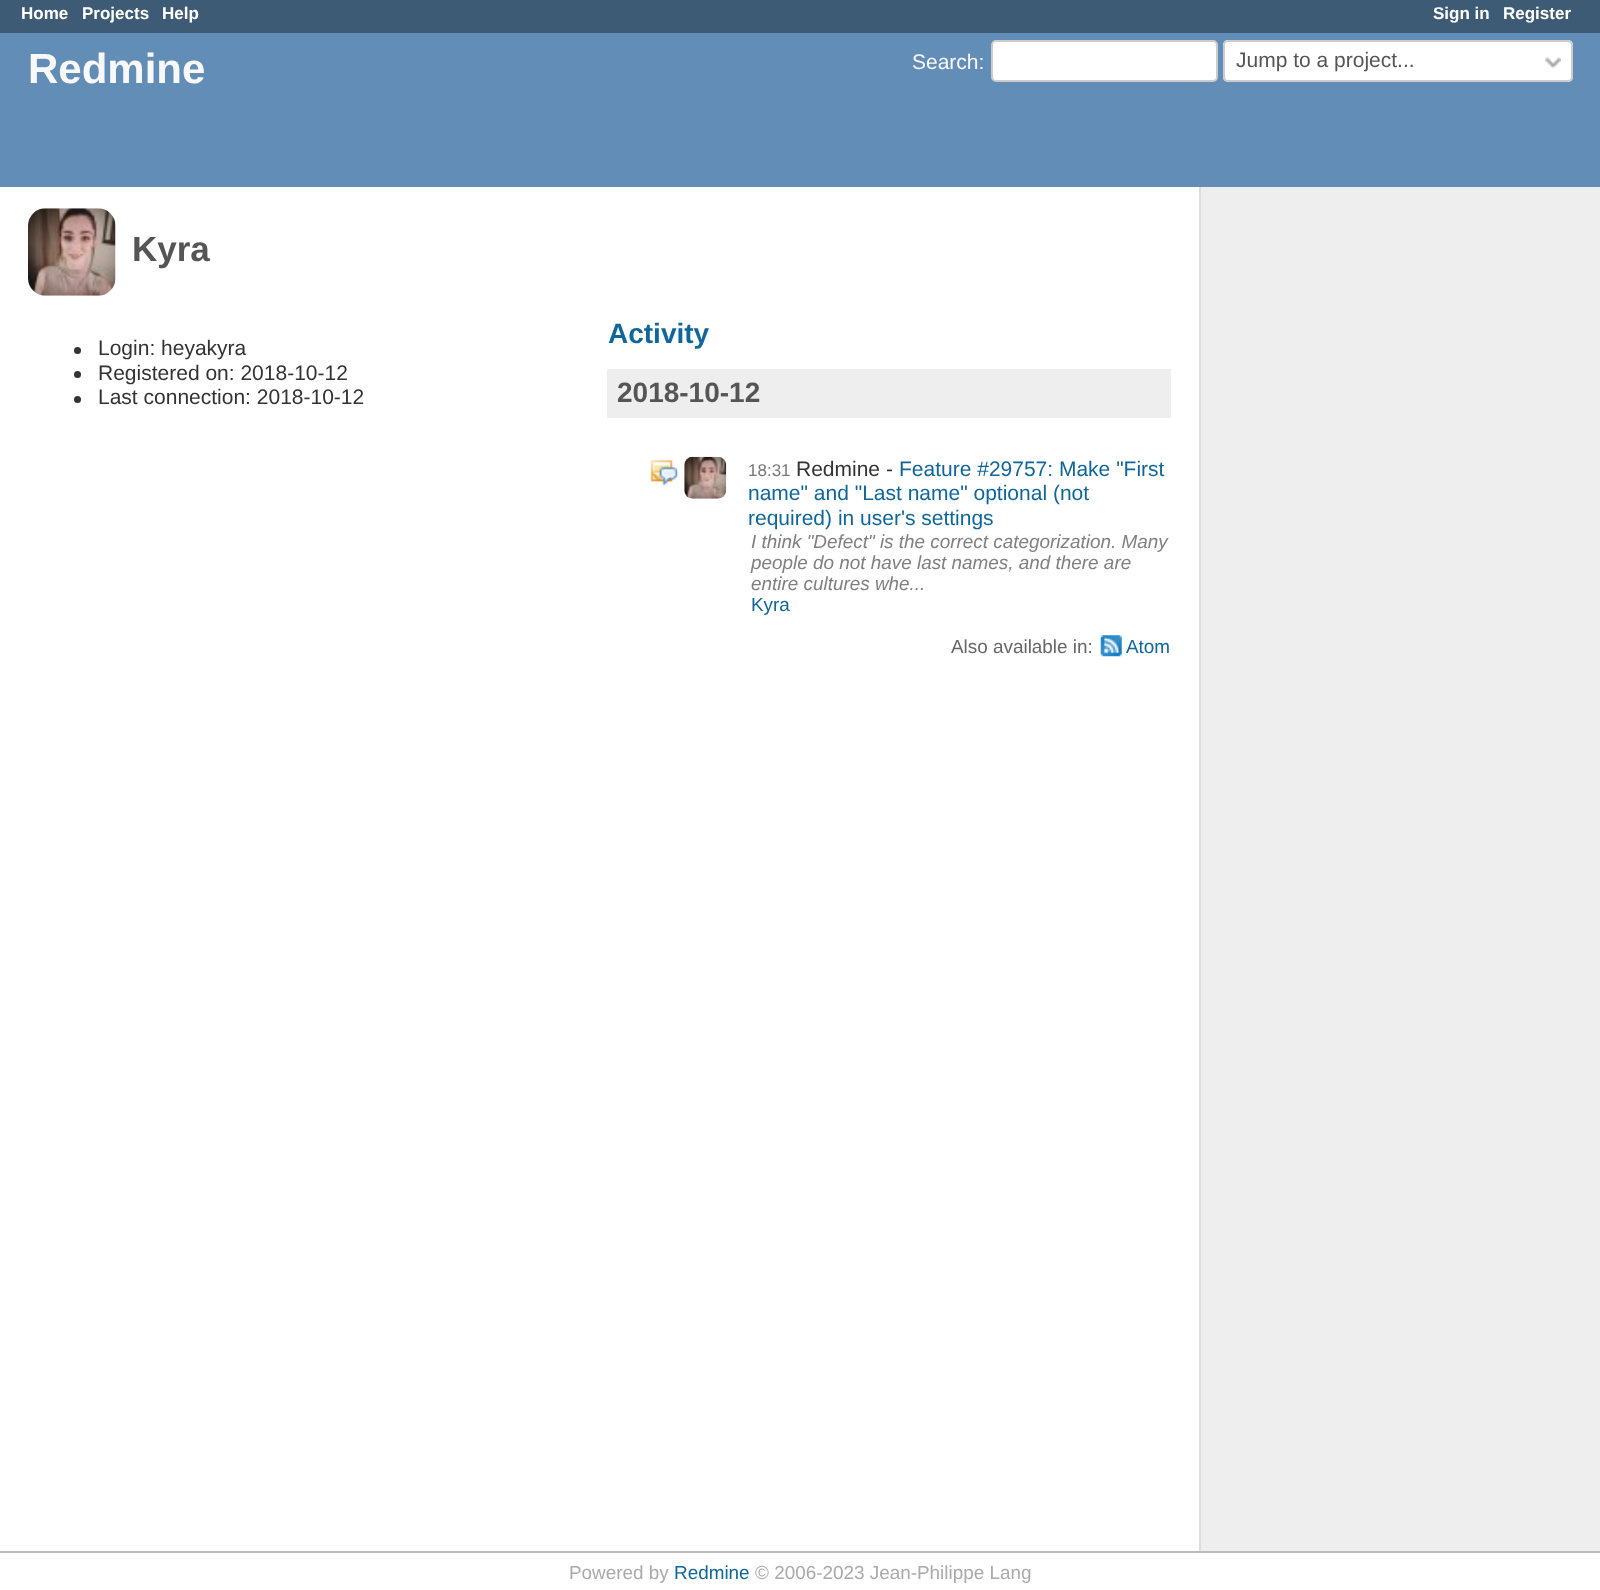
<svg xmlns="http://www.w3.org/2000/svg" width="1600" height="1590">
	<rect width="100%" height="100%" fill="#FFFFFF" />
	<rect x="0" y="0" width="1600" height="33" fill="#3E5B76" />
	<g font-family="Liberation Sans" font-size="17" font-weight="700" fill="#FFFFFF">
		<text x="21" y="19">Home</text>
		<text x="82" y="19">Projects</text>
		<text x="162" y="19">Help</text>
		<text x="1433" y="19">Sign in</text>
		<text x="1503" y="19">Register</text>
	</g>
	<rect x="0" y="33" width="1600" height="154" fill="#628DB6" />
	<text x="28" y="83" font-family="Liberation Sans" font-size="42" font-weight="700" fill="#F8F8F8">Redmine</text>
	<text x="912" y="69" font-family="Liberation Sans" font-size="21" fill="#F8F8F8">Search:</text>
	<rect x="992" y="41" width="225" height="40" rx="4" fill="#FFFFFF" stroke="#CCCCCC" stroke-width="2" />
	<rect x="1223" y="40" width="350" height="42" rx="5" fill="#FFFFFF" />
	<image x="1545" y="57" width="16" height="12" href="assets/img1.png" />
	<rect x="1224" y="41" width="348" height="40" rx="4" fill="none" stroke="#CCCCCC" stroke-width="2" />
	<text x="1236" y="67" font-family="Liberation Sans" font-size="21" fill="#555555">Jump to a project...</text>
	<image x="28" y="208" width="88" height="88" href="assets/img2.png" />
	<text x="132" y="261" font-family="Liberation Sans" font-size="35" font-weight="700" fill="#555555">Kyra</text>
	<circle cx="77.5" cy="350.5" r="3.5" fill="#333333" />
	<text x="98" y="355" font-family="Liberation Sans" font-size="21" fill="#333333">Login: heyakyra</text>
	<circle cx="77.5" cy="374.5" r="3.5" fill="#333333" />
	<text x="98" y="380" font-family="Liberation Sans" font-size="21" fill="#333333">Registered on: 2018-10-12</text>
	<circle cx="77.5" cy="399.5" r="3.5" fill="#333333" />
	<text x="98" y="404" font-family="Liberation Sans" font-size="21" fill="#333333">Last connection: 2018-10-12</text>
	<text x="608" y="343" font-family="Liberation Sans" font-size="28" font-weight="700" fill="#116699">Activity</text>
	<rect x="607" y="369" width="564" height="49" fill="#EEEEEE" />
	<text x="617" y="402" font-family="Liberation Sans" font-size="28" font-weight="700" fill="#555555">2018-10-12</text>
	<image x="650" y="459" width="28" height="26" href="assets/img3.png" />
	<image x="684" y="456" width="43" height="43" href="assets/img4.png" />
	<text x="748" y="476" font-family="Liberation Sans" font-size="17" fill="#777777">18:31</text>
	<text x="796" y="476" font-family="Liberation Sans" font-size="21" fill="#333333">Redmine -</text>
	<g font-family="Liberation Sans" font-size="21" fill="#116699">
		<text x="899" y="476">Feature #29757: Make "First</text>
		<text x="748" y="500">name" and "Last name" optional (not</text>
		<text x="748" y="525">required) in user's settings</text>
	</g>
	<g font-family="Liberation Sans" font-size="18.9" font-style="italic" fill="#808080">
		<text x="751" y="548">I think "Defect" is the correct categorization. Many</text>
		<text x="751" y="569">people do not have last names, and there are</text>
		<text x="751" y="590">entire cultures whe...</text>
	</g>
	<text x="751" y="611" font-family="Liberation Sans" font-size="18.9" fill="#116699">Kyra</text>
	<text x="951" y="653" font-family="Liberation Sans" font-size="18.9" fill="#666666">Also available in:</text>
	<image x="1100" y="635" width="22" height="22" href="assets/img5.png" />
	<text x="1126" y="653" font-family="Liberation Sans" font-size="18.9" fill="#116699">Atom</text>
	<rect x="1201" y="187" width="399" height="1364" fill="#EEEEEE" />
	<rect x="1199" y="187" width="2" height="1364" fill="#DDDDDD" />
	<rect x="0" y="1551" width="1600" height="2" fill="#BBBBBB" />
	<text x="569" y="1579" font-family="Liberation Sans" font-size="18.9" fill="#AAAAAA">Powered by</text>
	<text x="674" y="1579" font-family="Liberation Sans" font-size="18.9" fill="#116699">Redmine</text>
	<text x="755" y="1579" font-family="Liberation Sans" font-size="18.9" fill="#AAAAAA">© 2006-2023 Jean-Philippe Lang</text>
</svg>
